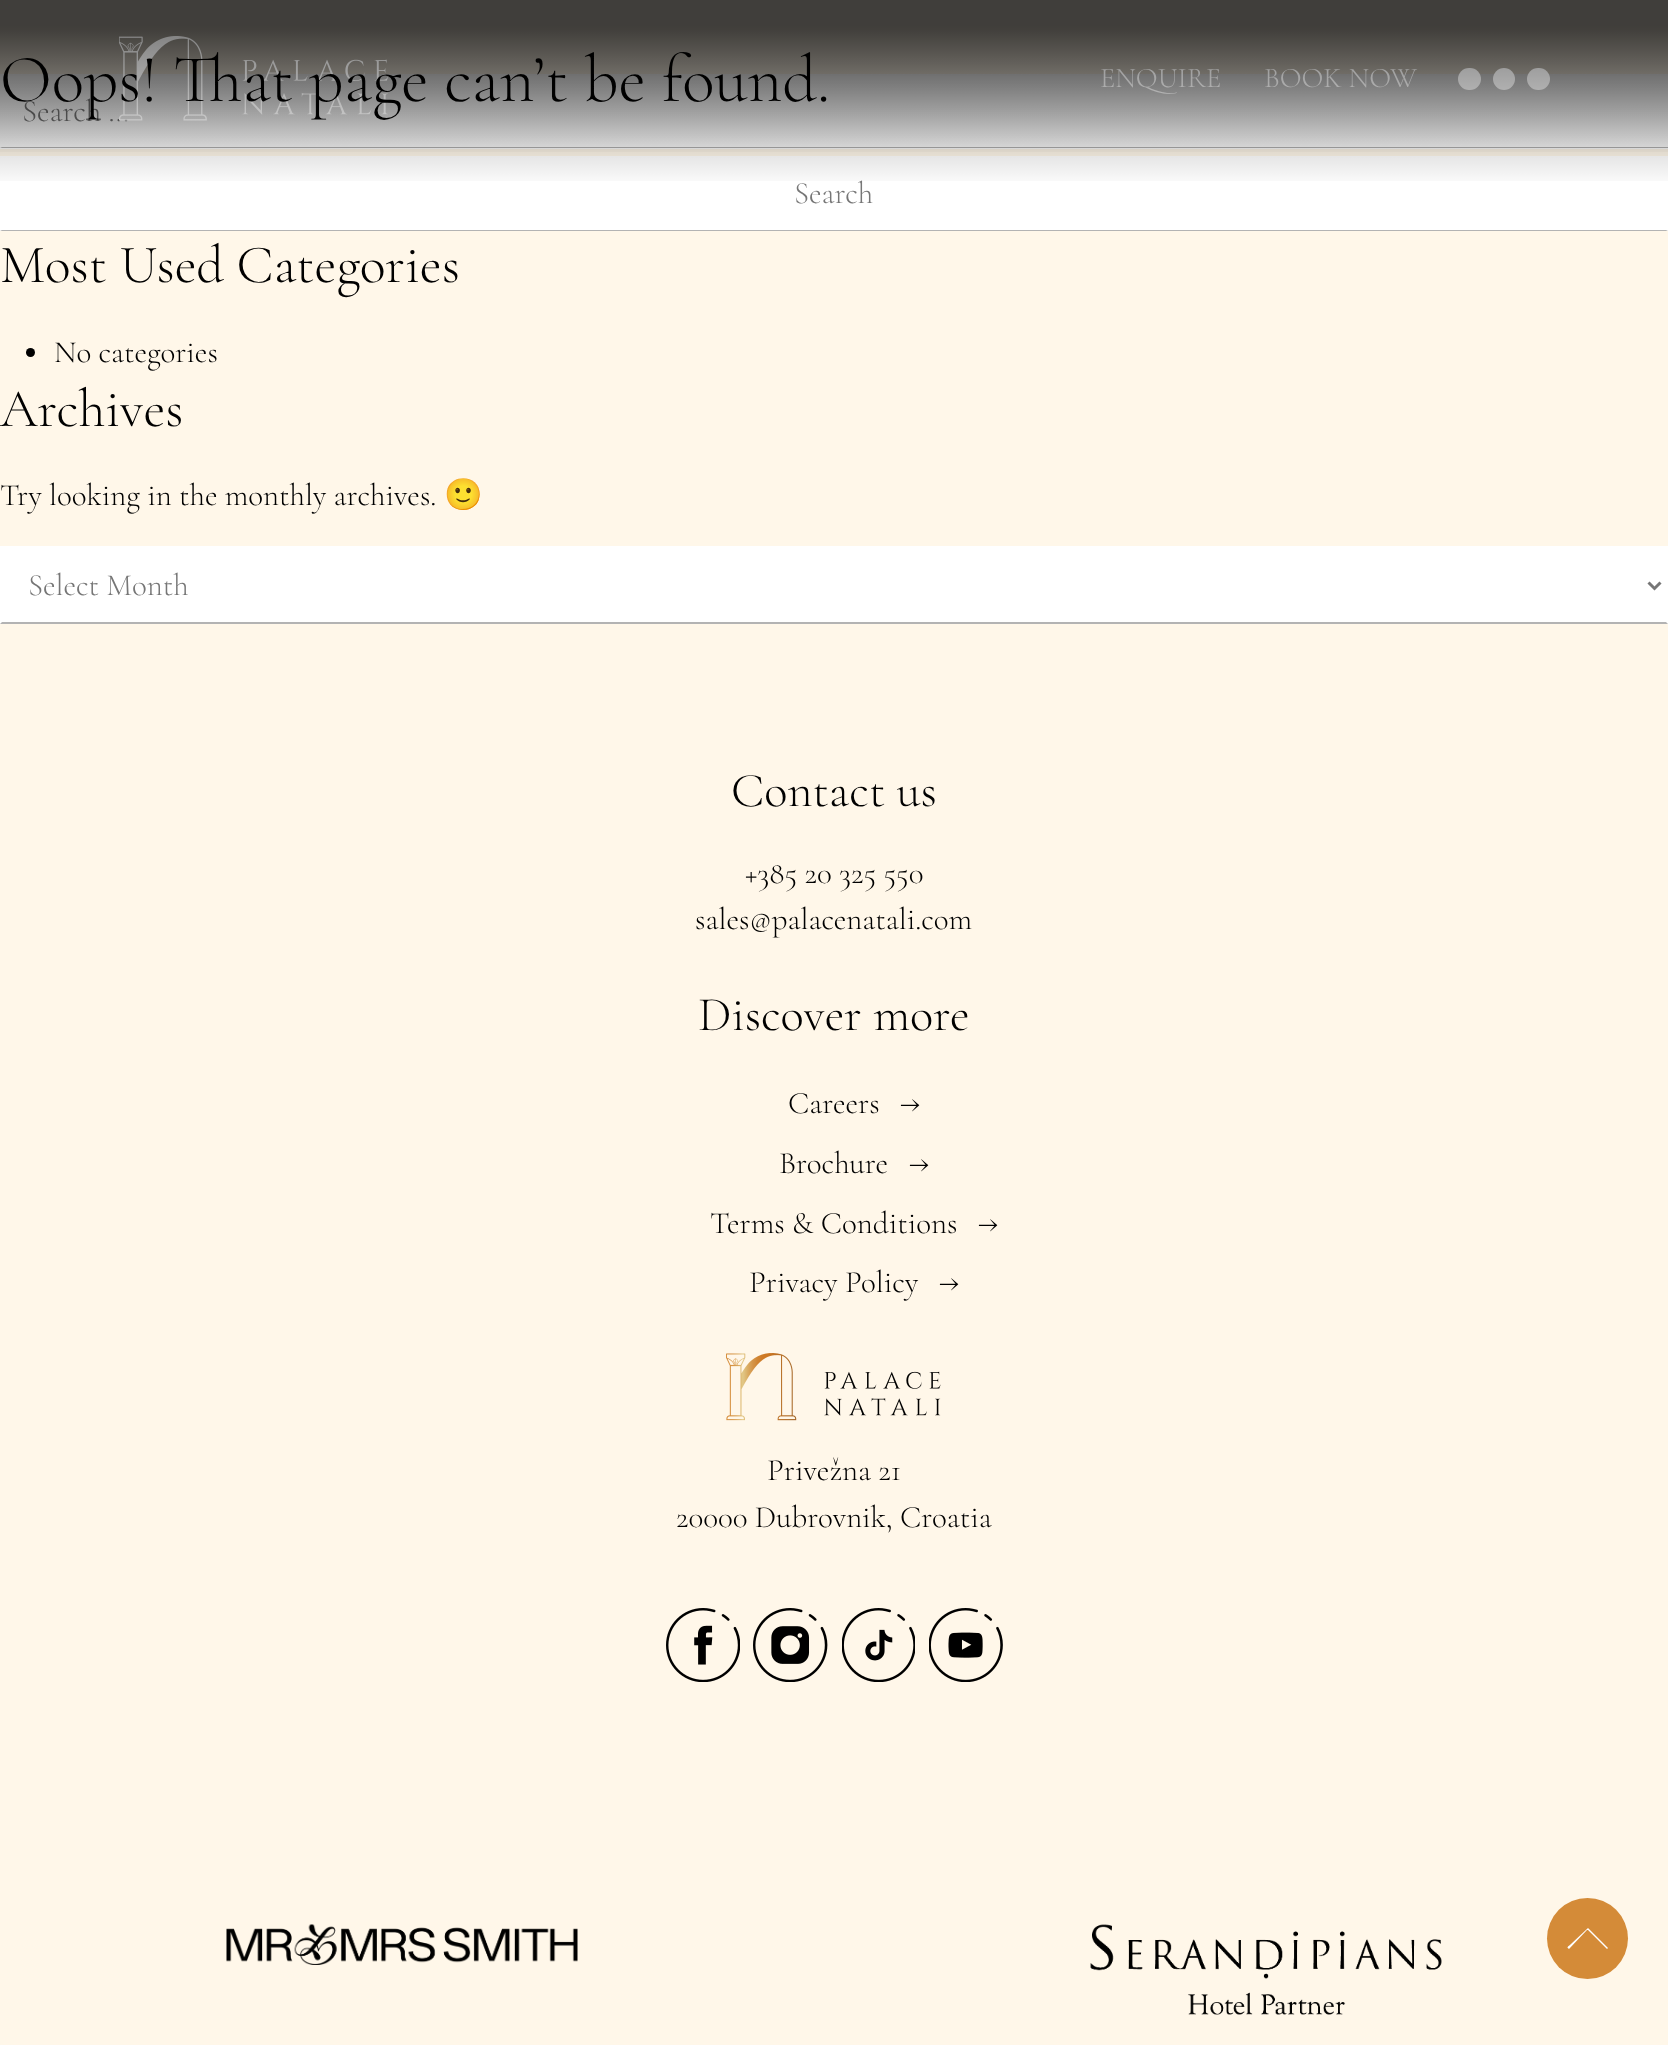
<svg xmlns="http://www.w3.org/2000/svg" width="1668" height="2045">
	<defs>
		<linearGradient id="g1" gradientUnits="userSpaceOnUse" x1="834" y1="0" x2="834" y2="158"><stop offset="0.16" stop-color="#000000" stop-opacity="0.5" /><stop offset="1" stop-color="#000000" stop-opacity="0" /></linearGradient>
		<linearGradient id="g2" gradientUnits="userSpaceOnUse" x1="834" y1="0" x2="834" y2="188"><stop offset="0.16" stop-color="#000000" stop-opacity="0.5" /><stop offset="1" stop-color="#000000" stop-opacity="0" /></linearGradient>
	</defs>
	<rect width="100%" height="100%" fill="#FFF7E9" />
	<rect x="0" y="74" width="1668" height="75" fill="#FFFFFF" />
	<path d="M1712 148H0L2 147H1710Z" fill="#B3B3B3" />
	<text x="22" y="121" font-family="Cormorant Garamond" font-size="31" font-weight="300" fill="#767676">Search …</text>
	<rect x="0" y="156" width="1668" height="75" fill="#FFFFFF" />
	<text x="794" y="203" font-family="Cormorant Garamond" font-size="31" font-weight="300" fill="#767676">Search</text>
	<rect x="0" y="0" width="1668" height="152" fill="url(#g1)" />
	<image x="119" y="36" width="270" height="85" href="assets/img1.png" />
	<g font-family="Cormorant Garamond" font-size="28.5" font-weight="300" fill="#FFFFFF">
		<text x="1100" y="87">ENQUIRE</text>
		<text x="1264" y="87">BOOK NOW</text>
	</g>
	<rect x="1458" y="68" width="23" height="22" rx="11" fill="#FFFFFF" />
	<circle cx="1504" cy="79" r="11" fill="#FFFFFF" />
	<rect x="1527" y="68" width="23" height="22" rx="11" fill="#FFFFFF" />
	<rect x="0" y="0" width="1668" height="181" fill="url(#g2)" />
	<text x="0" y="101" font-family="Cormorant Garamond" font-size="67.5" font-weight="300" fill="#000000">Oops! That page can’t be found.</text>
	<path d="M1668 231H0L2 230H1666Z" fill="#B3B3B3" />
	<text x="0" y="282" font-family="Cormorant Garamond" font-size="54" font-weight="300" fill="#000000">Most Used Categories</text>
	<circle cx="30.5" cy="352.5" r="4.5" fill="#000000" />
	<text x="54" y="362" font-family="Cormorant Garamond" font-size="31" font-weight="300" fill="#000000">No categories</text>
	<text x="0" y="426" font-family="Cormorant Garamond" font-size="54" font-weight="300" fill="#000000">Archives</text>
	<text x="0" y="505" font-family="Cormorant Garamond" font-size="31" font-weight="300" fill="#000000">Try looking in the monthly archives.</text>
	<text x="444" y="505" font-family="Noto Color Emoji" font-size="31" fill="#000000">🙂</text>
	<rect x="0" y="546" width="1668" height="78" fill="#FFFFFF" />
	<path d="M1668 624H0L2 622H1666Z" fill="#B3B3B3" />
	<path d="M1648.5 582.5L1654.5 588.5L1660.5 582.5" fill="none" stroke="#767676" stroke-width="3" />
	<text x="28" y="595" font-family="Cormorant Garamond" font-size="31" font-weight="300" fill="#767676">Select Month</text>
	<text x="731" y="806" font-family="Cormorant Garamond" font-size="48.5" font-weight="300" fill="#000000">Contact us</text>
	<g font-family="Cormorant Garamond" font-size="31" font-weight="300" fill="#000000">
		<text x="745" y="883">+385 20 325 550</text>
		<text x="695" y="929">sales@palacenatali.com</text>
	</g>
	<text x="698" y="1030" font-family="Cormorant Garamond" font-size="48.5" font-weight="300" fill="#000000">Discover more</text>
	<g font-family="Cormorant Garamond" font-size="31" font-weight="300" fill="#000000">
		<text x="788" y="1113">Careers</text>
		<text x="900" y="1113">→</text>
		<text x="779" y="1173">Brochure</text>
		<text x="909" y="1173">→</text>
		<text x="710" y="1233">Terms &amp; Conditions</text>
		<text x="978" y="1233">→</text>
		<text x="749" y="1292">Privacy Policy</text>
		<text x="939" y="1292">→</text>
	</g>
	<image x="726" y="1353" width="215" height="68" href="assets/img2.png" />
	<g font-family="Cormorant Garamond" font-size="31" font-weight="300" fill="#000000">
		<text x="767" y="1480">Privežna 21</text>
		<text x="676" y="1527">20000 Dubrovnik, Croatia</text>
	</g>
	<image x="666" y="1608" width="74" height="74" href="assets/img3.png" />
	<image x="753" y="1608" width="75" height="74" href="assets/img4.png" />
	<image x="842" y="1608" width="73" height="74" href="assets/img5.png" />
	<image x="929" y="1608" width="74" height="74" href="assets/img6.png" />
	<image x="226" y="1924" width="352" height="41" href="assets/img7.png" />
	<image x="1090" y="1924" width="352" height="91" href="assets/img8.png" />
	<circle cx="1587.5" cy="1938.5" r="40.5" fill="#D48B38" />
	<path d="M1608 1948L1607 1949L1588 1930H1587L1569 1949C1566 1947 1568 1947 1571 1944L1588 1928Z" fill="#FFFFFF" fill-rule="evenodd" />
</svg>
